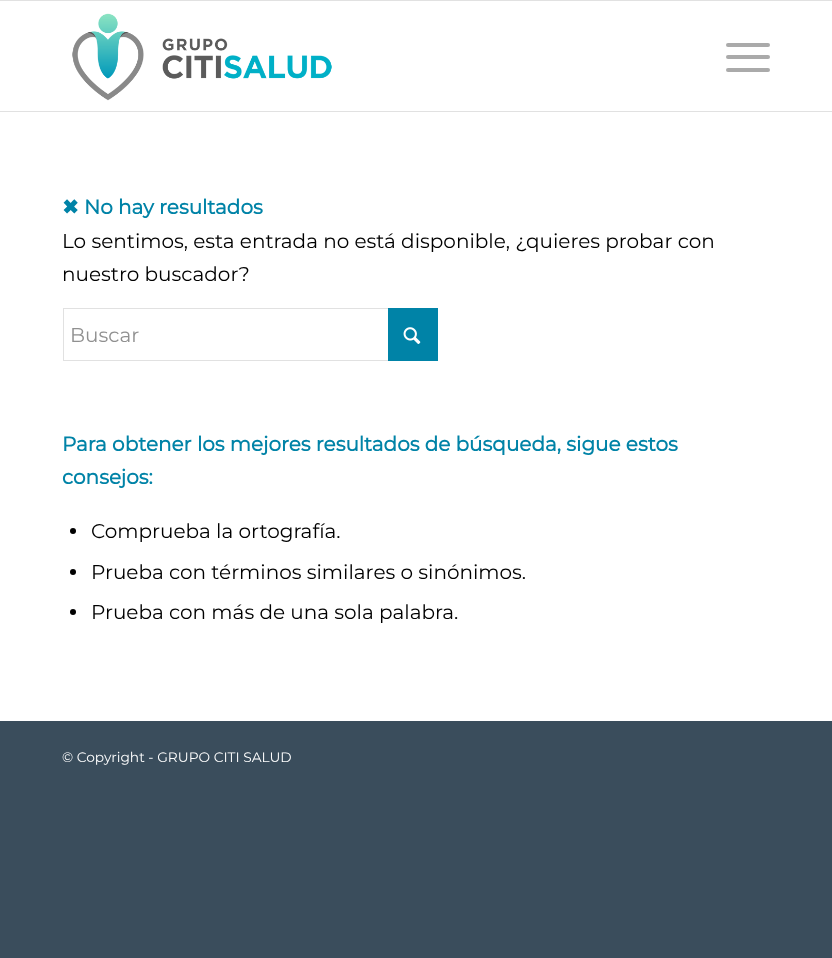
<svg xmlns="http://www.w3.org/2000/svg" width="832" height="958">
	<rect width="100%" height="100%" fill="#3A4D5C" />
	<rect x="0" y="1" width="832" height="720" fill="#FFFFFF" />
	<rect x="0" y="0" width="832" height="1" fill="#E1E1E1" />
	<rect x="0" y="111" width="832" height="1" fill="#E1E1E1" />
	<image x="72" y="13" width="260" height="88" href="assets/img1.png" />
	<rect x="726" y="55" width="44" height="4" rx="2" fill="#AAAAAA" />
	<rect x="726" y="43" width="44" height="4" rx="2" fill="#AAAAAA" />
	<rect x="726" y="68" width="44" height="4" rx="2" fill="#AAAAAA" />
	<text x="62" y="214" font-family="DejaVu Sans" font-size="20" font-weight="700" fill="#0083A7">✖</text>
	<text x="84" y="214" font-family="Montserrat" font-size="20" font-weight="700" fill="#0083A7">No hay resultados</text>
	<g font-family="Montserrat" font-size="20" font-weight="100" fill="#000000">
		<text x="62" y="248">Lo sentimos, esta entrada no está disponible, ¿quieres probar con</text>
		<text x="62" y="281">nuestro buscador?</text>
	</g>
	<rect x="63.5" y="308.5" width="374" height="52" fill="none" stroke="#E1E1E1" />
	<rect x="388" y="308" width="50" height="53" fill="#0083A7" />
	<text x="70" y="342" font-family="Montserrat" font-size="20" font-weight="100" fill="#909090">Buscar</text>
	<image x="403" y="327" width="18" height="17" href="assets/img2.png" />
	<g font-family="Montserrat" font-size="20" font-weight="700" fill="#0083A7">
		<text x="62" y="451">Para obtener los mejores resultados de búsqueda, sigue estos</text>
		<text x="62" y="484">consejos:</text>
	</g>
	<circle cx="73" cy="531" r="3" fill="#000000" />
	<text x="91" y="538" font-family="Montserrat" font-size="20" font-weight="100" fill="#000000">Comprueba la ortografía.</text>
	<circle cx="73" cy="572" r="3" fill="#000000" />
	<text x="91" y="579" font-family="Montserrat" font-size="20" font-weight="100" fill="#000000">Prueba con términos similares o sinónimos.</text>
	<circle cx="73" cy="612" r="3" fill="#000000" />
	<text x="91" y="619" font-family="Montserrat" font-size="20" font-weight="100" fill="#000000">Prueba con más de una sola palabra.</text>
	<text x="62" y="762" font-family="Montserrat" font-size="13.75" font-weight="100" fill="#FFFFFF">© Copyright - GRUPO CITI SALUD</text>
</svg>
